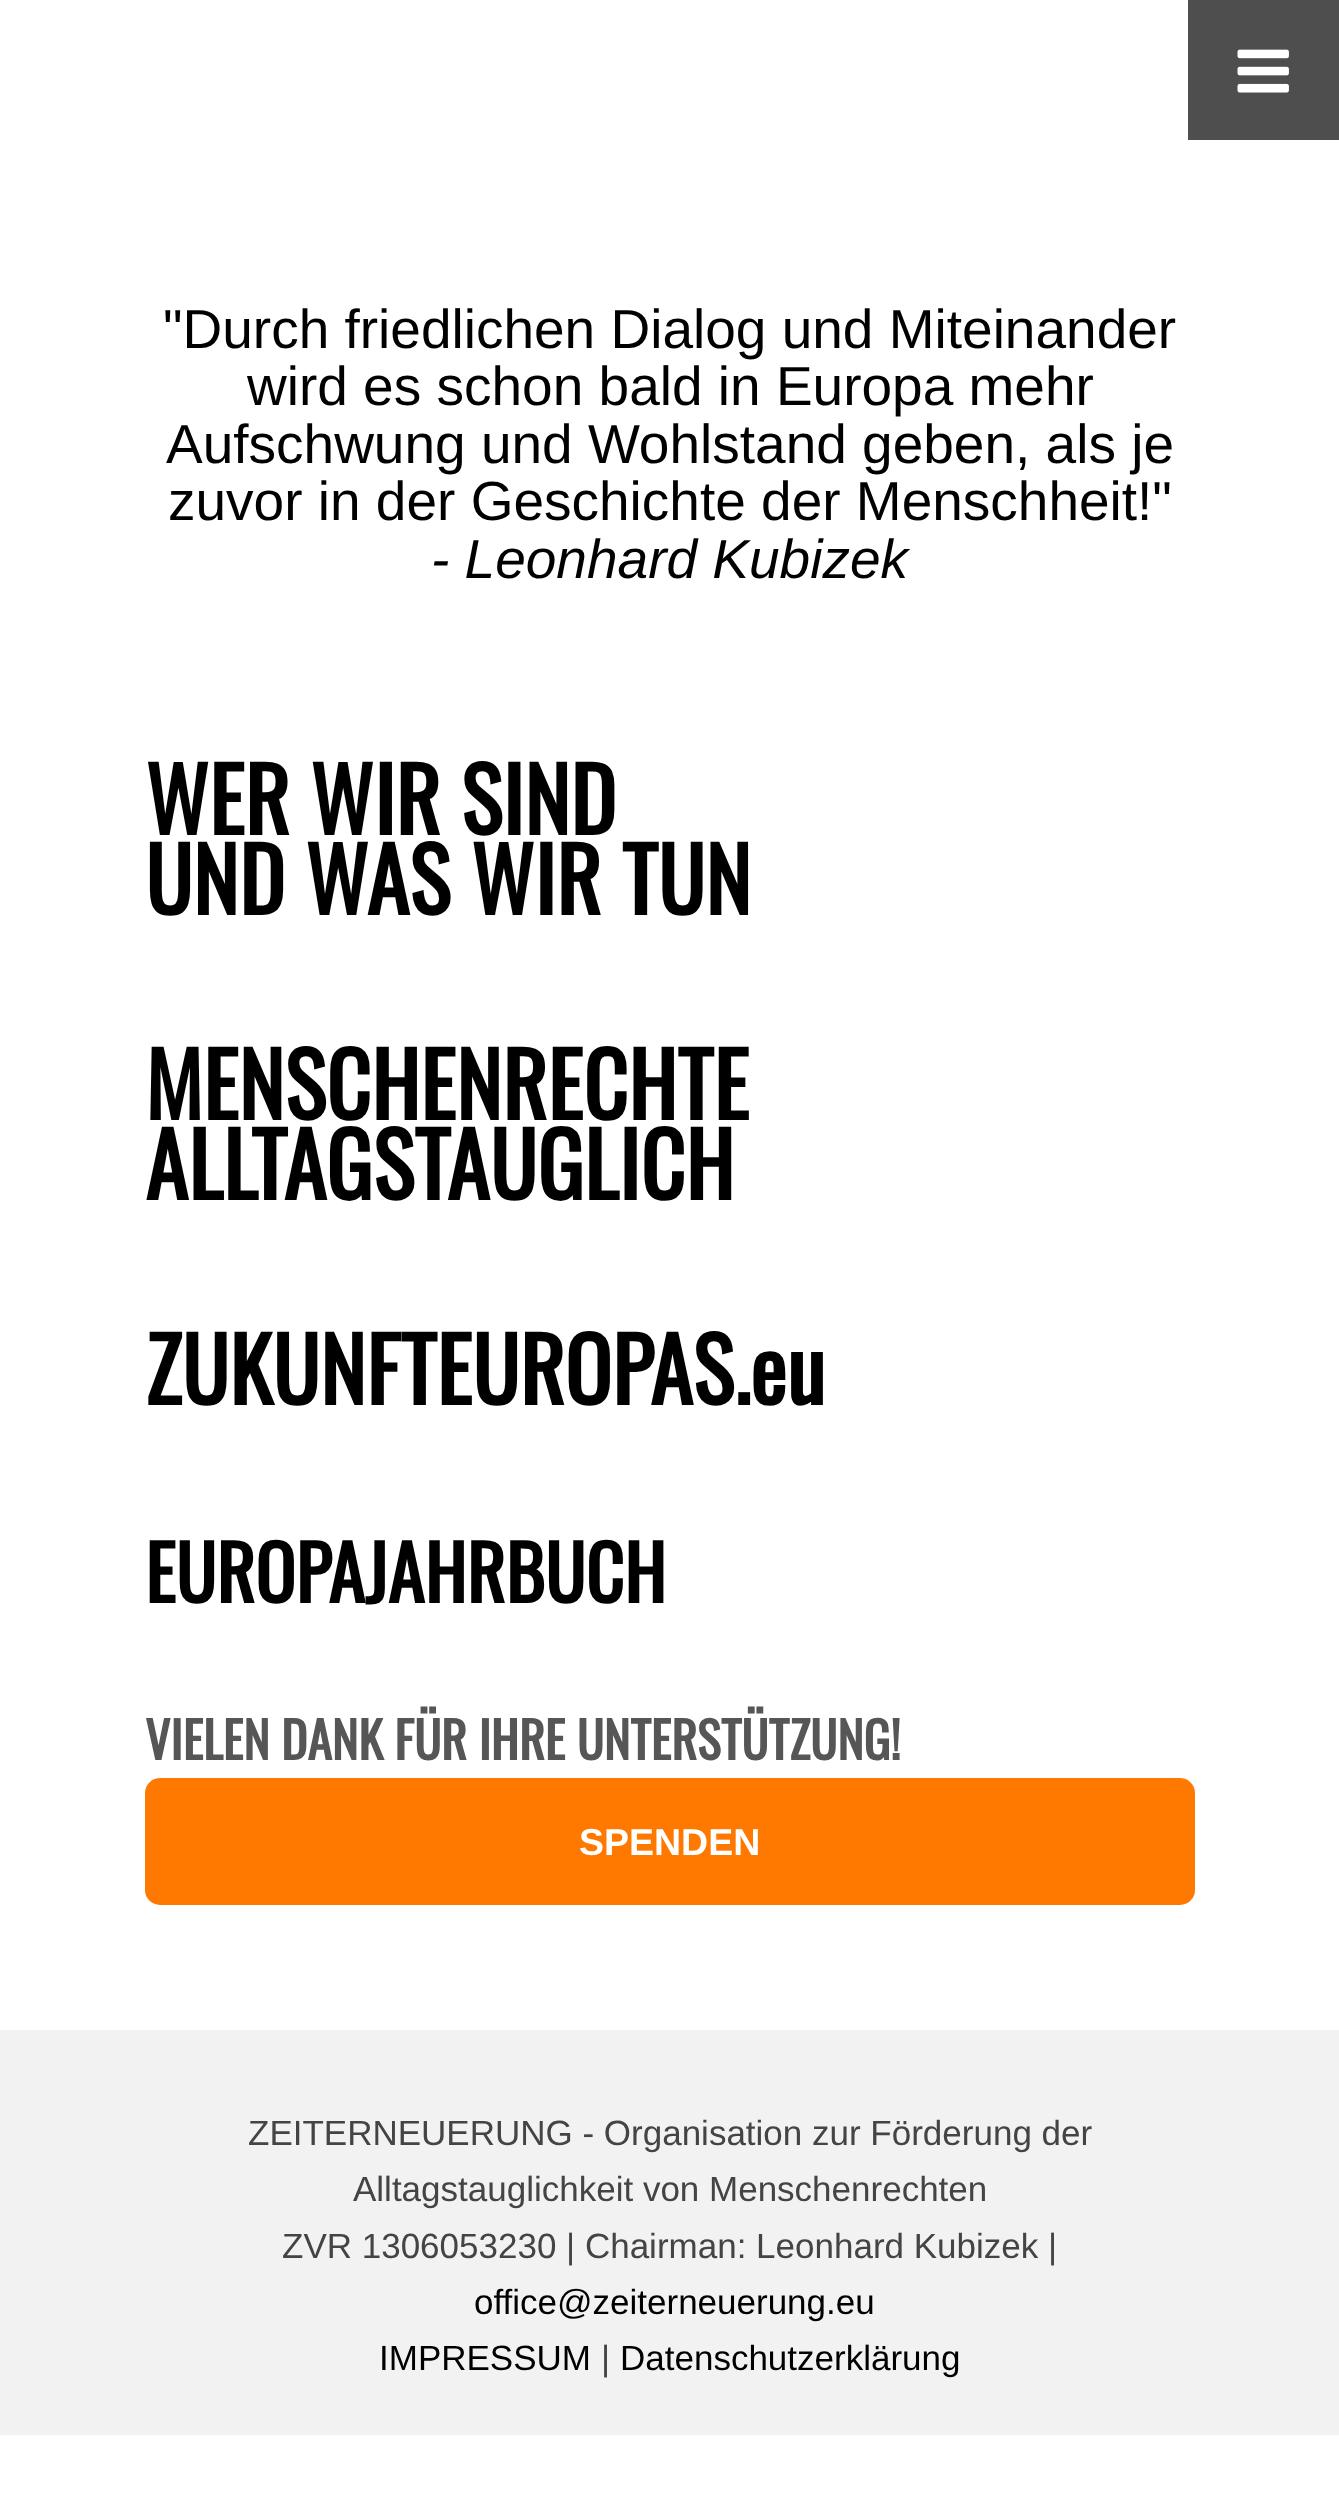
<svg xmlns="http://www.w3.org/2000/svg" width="1339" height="2514">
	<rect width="100%" height="100%" fill="#FFFFFF" />
	<rect x="1188" y="0" width="151" height="140" fill="#4E4E4E" />
	<image x="1237" y="49" width="52" height="44" href="assets/img1.png" />
	<g font-family="Liberation Sans" font-size="55" fill="#000000">
		<text x="163" y="348">"Durch friedlichen Dialog und Miteinander</text>
		<text x="247" y="405">wird es schon bald in Europa mehr</text>
		<text x="166" y="463">Aufschwung und Wohlstand geben, als je</text>
		<text x="168" y="520">zuvor in der Geschichte der Menschheit!"</text>
	</g>
	<text x="431" y="578" font-family="Liberation Sans" font-size="55" font-style="italic" fill="#000000">- Leonhard Kubizek</text>
	<g font-family="Oswald" font-size="87.5" font-weight="700" fill="#000000">
		<text x="145" y="835">WER WIR SIND</text>
		<text x="145" y="915">UND WAS WIR TUN</text>
		<text x="145" y="1120">MENSCHENRECHTE</text>
		<text x="145" y="1200">ALLTAGSTAUGLICH</text>
		<text x="145" y="1405">ZUKUNFTEUROPAS.eu</text>
	</g>
	<text x="145" y="1603" font-family="Oswald" font-size="75" font-weight="700" fill="#000000">EUROPAJAHRBUCH</text>
	<text x="145" y="1760" font-family="Oswald" font-size="50" font-weight="700" fill="#565656">VIELEN DANK FÜR IHRE UNTERSTÜTZUNG!</text>
	<rect x="145" y="1778" width="1050" height="127" rx="15" fill="#FF7900" />
	<text x="579" y="1855" font-family="Liberation Sans" font-size="37.5" font-weight="700" fill="#FFFFFF">SPENDEN</text>
	<rect x="0" y="2030" width="1339" height="405" fill="#F2F2F2" />
	<g font-family="Liberation Sans" font-size="35" fill="#444444">
		<text x="248" y="2145">ZEITERNEUERUNG - Organisation zur Förderung der</text>
		<text x="353" y="2201">Alltagstauglichkeit von Menschenrechten</text>
		<text x="282" y="2258">ZVR 1306053230 | Chairman: Leonhard Kubizek |</text>
	</g>
	<g font-family="Liberation Sans" font-size="35" fill="#000000">
		<text x="474" y="2314">office@zeiterneuerung.eu</text>
		<text x="379" y="2370">IMPRESSUM</text>
	</g>
	<text x="601" y="2370" font-family="Liberation Sans" font-size="35" fill="#444444">|</text>
	<text x="620" y="2370" font-family="Liberation Sans" font-size="35" fill="#000000">Datenschutzerklärung</text>
</svg>
